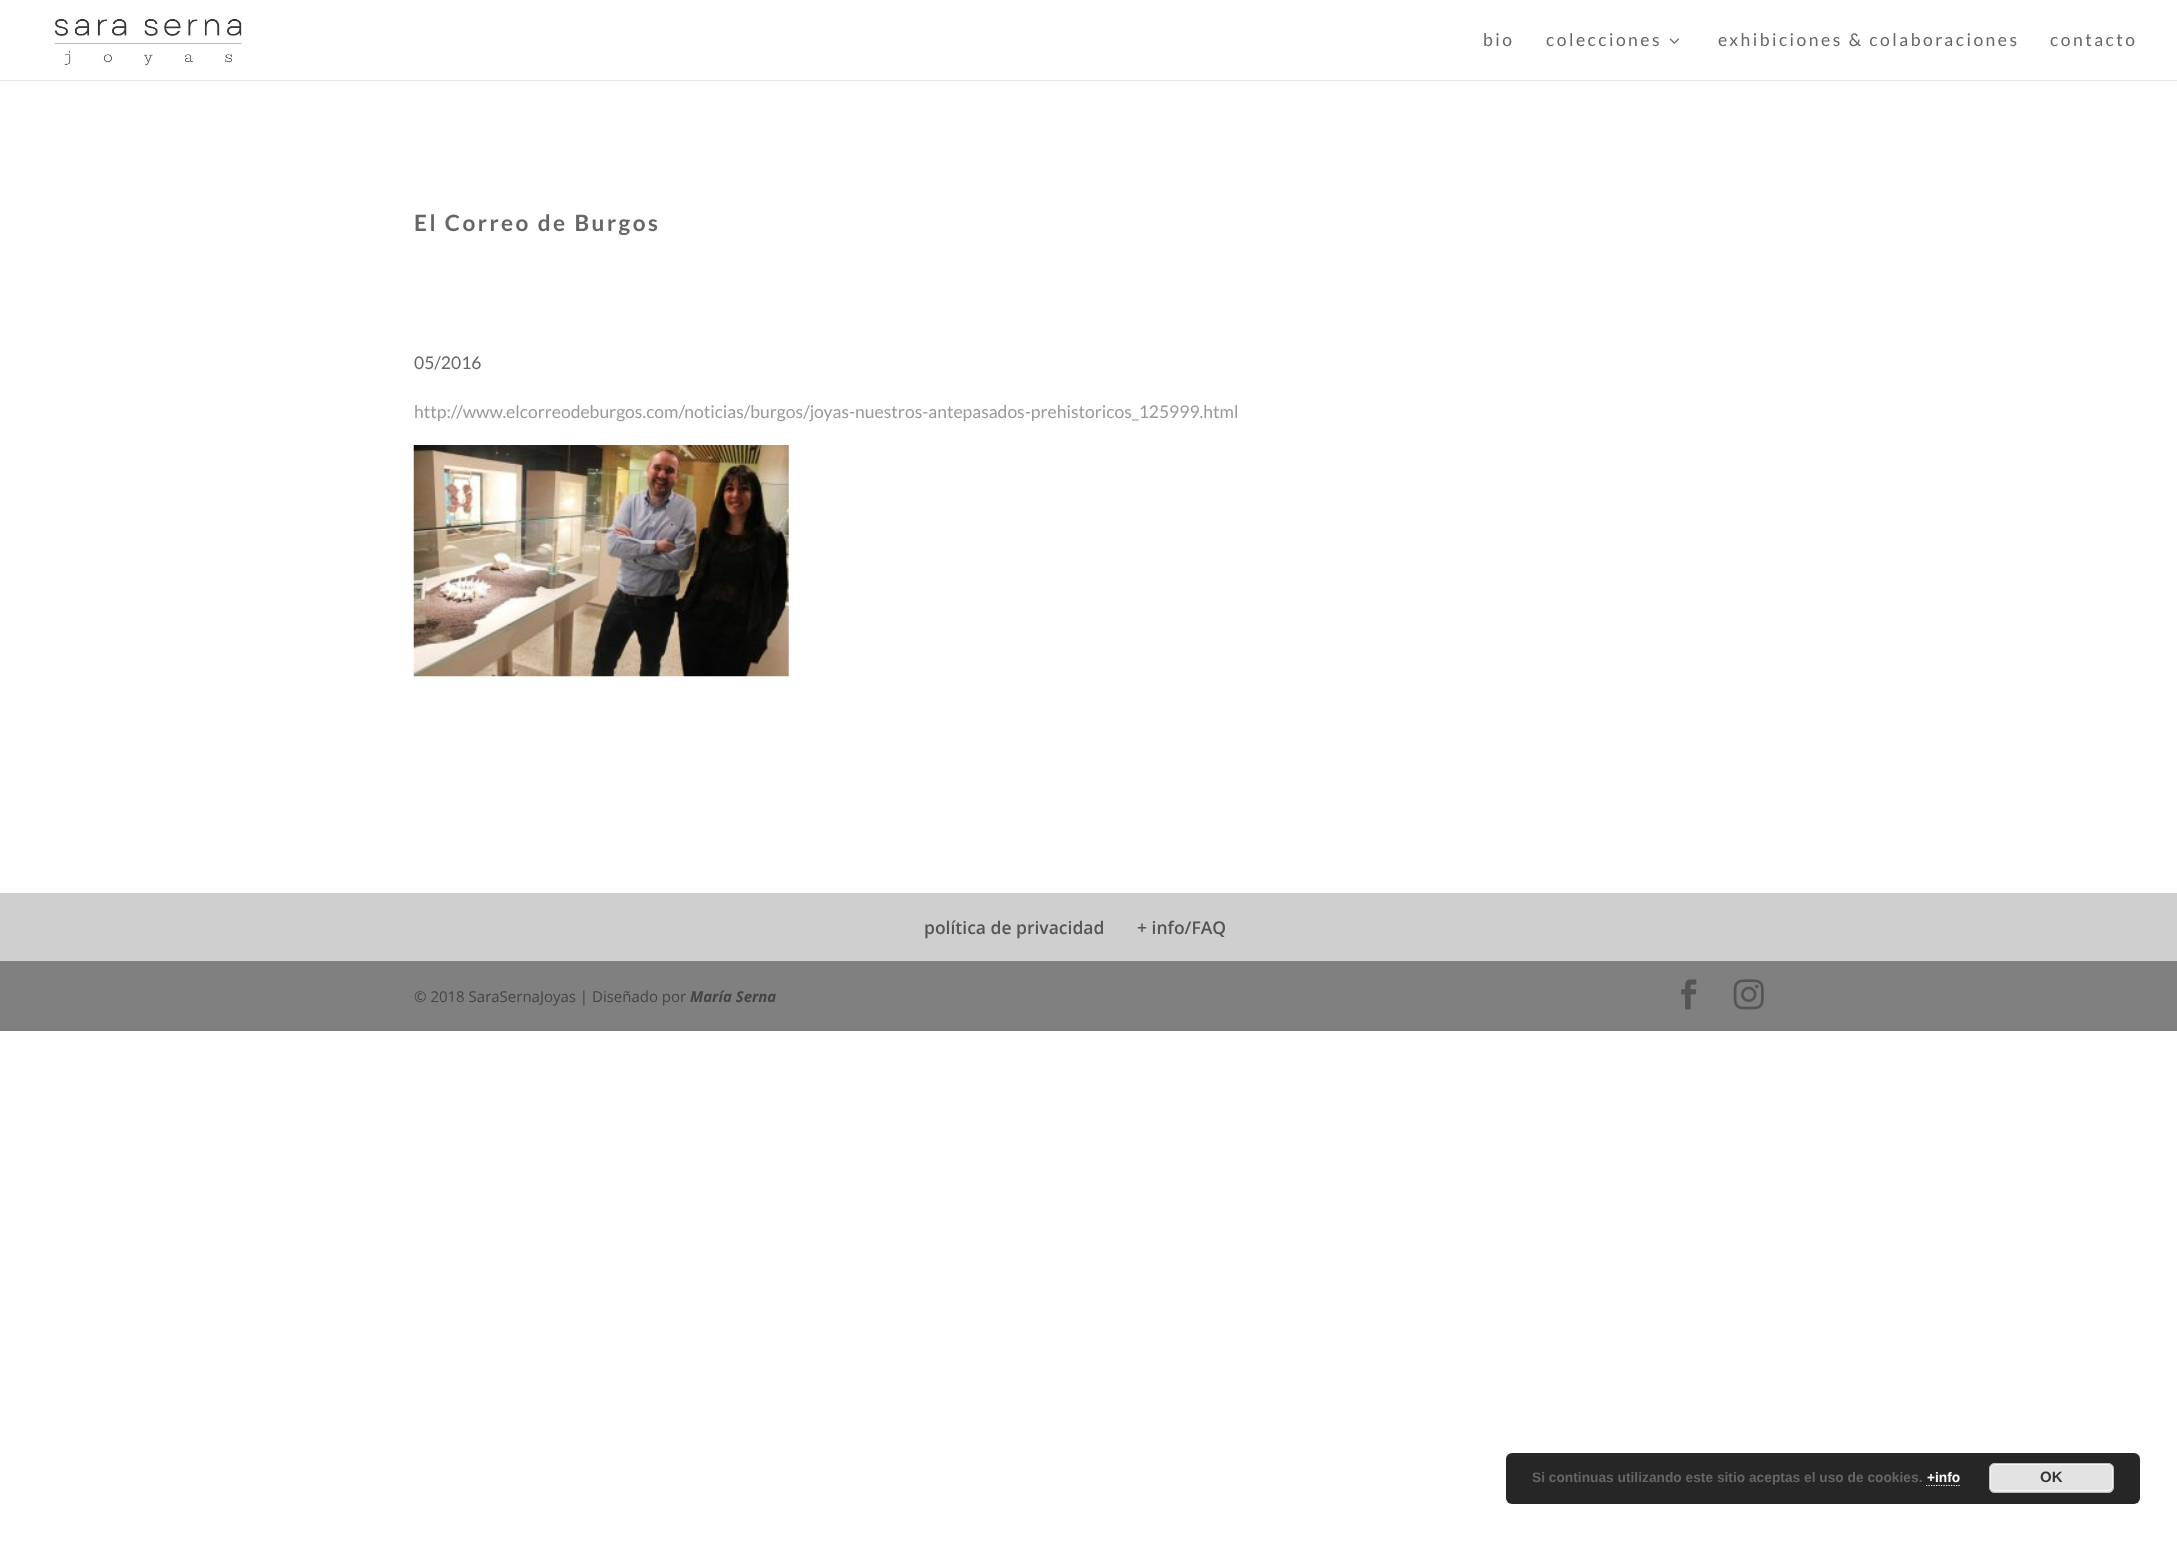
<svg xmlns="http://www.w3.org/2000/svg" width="2177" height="1541">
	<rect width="100%" height="100%" fill="#FFFFFF" />
	<path d="M0 80V81H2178V1V80Z" fill="#E6E6E6" />
	<image x="54" y="19" width="188" height="47" href="assets/img1.png" />
	<g font-family="Lato" font-size="17.5" letter-spacing="2.5" fill="#666666">
		<text x="1483" y="46">bio</text>
		<text x="1546" y="46">colecciones</text>
	</g>
	<image x="1669" y="38" width="10" height="6" href="assets/img2.png" />
	<g font-family="Lato" font-size="17.5" letter-spacing="2.5" fill="#666666">
		<text x="1718" y="46">exhibiciones &amp; colaboraciones</text>
		<text x="2050" y="46">contacto</text>
	</g>
	<text x="414" y="231" font-family="Lato" font-size="22.5" font-weight="700" letter-spacing="2.5" fill="#666666">El Correo de Burgos</text>
	<text x="414" y="369" font-family="Lato" font-size="17.5" fill="#666666">05/2016</text>
	<text x="414" y="418" font-family="Lato" font-size="17.5" fill="#999999">http://www.elcorreodeburgos.com/noticias/burgos/joyas-nuestros-antepasados-prehistoricos_125999.html</text>
	<image x="413" y="445" width="376" height="232" href="assets/img3.png" />
	<rect x="0" y="893" width="2177" height="68" fill="#CFCFCF" />
	<g font-family="Open Sans" font-size="17.5" font-weight="600" fill="#555555">
		<text x="924" y="934">política de privacidad</text>
		<text x="1137" y="934">+ info/FAQ</text>
	</g>
	<rect x="0" y="961" width="2177" height="70" fill="#808080" />
	<text x="414" y="1002" font-family="Open Sans" font-size="15" fill="#444444">© 2018 SaraSernaJoyas | Diseñado por</text>
	<text x="690" y="1002" font-family="Open Sans" font-size="15" font-weight="700" font-style="italic" fill="#444444">María Serna</text>
	<image x="1681" y="979" width="16" height="31" href="assets/img4.png" />
	<image x="1733" y="979" width="31" height="31" href="assets/img5.png" />
	<rect x="1506" y="1453" width="634" height="51" rx="6" fill="#262626" />
	<text x="1532" y="1482" font-family="Liberation Sans" font-size="13.75" font-weight="700" fill="#666666">Si continuas utilizando este sitio aceptas el uso de cookies.</text>
	<text x="1927" y="1482" font-family="Liberation Sans" font-size="13.75" font-weight="700" fill="#FFFFFF">+info</text>
	<path d="M1926 1485.5H1960" fill="none" stroke="#FFFFFF" stroke-width="1.2" stroke-dasharray="1.25 1.25" />
	<rect x="1989" y="1463" width="125" height="30" rx="6" fill="#E3E3E3" />
	<rect x="1990.5" y="1464.5" width="122" height="26" rx="4.5" fill="none" stroke="#F6F6F6" />
	<rect x="1989.5" y="1463.5" width="124" height="29" rx="5.5" fill="none" stroke="#BBBBBB" />
	<text x="2040" y="1482" font-family="Liberation Sans" font-size="15" font-weight="700" fill="#333333">OK</text>
</svg>
